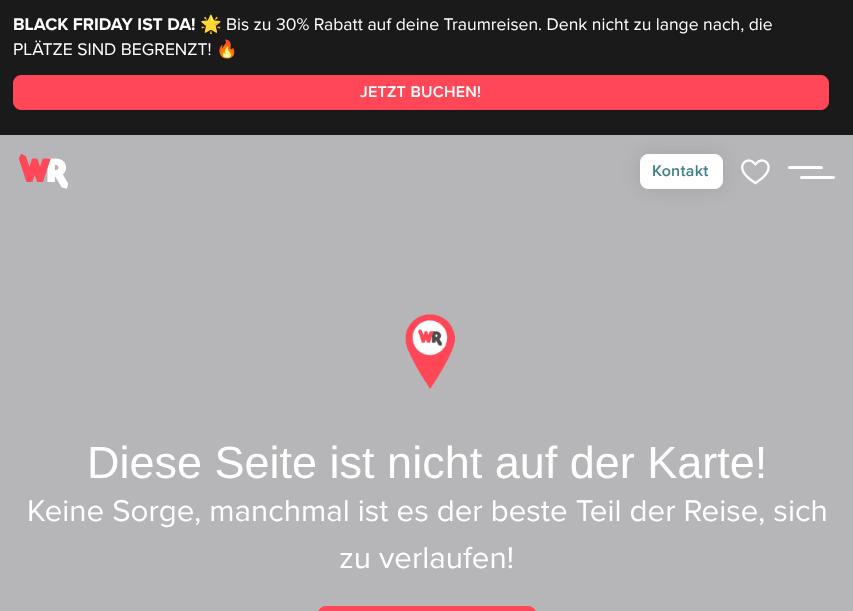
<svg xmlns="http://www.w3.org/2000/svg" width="853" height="611">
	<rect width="100%" height="100%" fill="#B6B6B8" />
	<rect x="640" y="154" width="83" height="35" rx="8" fill="#000000" fill-opacity="0.1" filter="blur(9.5px)" />
	<rect x="0" y="0" width="853" height="135" fill="#1A1A1A" />
	<text x="13" y="30" font-family="Proxima Nova" font-size="17.5" font-weight="700" fill="#FFFFFF">BLACK FRIDAY IST DA!</text>
	<text x="200" y="30" font-family="Noto Color Emoji" font-size="17.5" fill="#FFFFFF">🌟</text>
	<g font-family="Proxima Nova" font-size="17.5" fill="#FFFFFF">
		<text x="226" y="30">Bis zu 30% Rabatt auf deine Traumreisen. Denk nicht zu lange nach, die</text>
		<text x="13" y="55">PLÄTZE SIND BEGRENZT!</text>
	</g>
	<text x="216" y="55" font-family="Noto Color Emoji" font-size="17.5" fill="#FFFFFF">🔥</text>
	<rect x="13.5" y="75.5" width="815" height="34" rx="7.5" fill="#FF4758" stroke="#FF4758" />
	<text x="360" y="97" font-family="Proxima Nova" font-size="16" font-weight="600" letter-spacing="0.25" fill="#FFFFFF">JETZT BUCHEN!</text>
	<image x="19" y="154" width="50" height="35" href="assets/img1.png" />
	<rect x="640.5" y="154.5" width="82" height="34" rx="7.5" fill="#FFFFFF" stroke="#FFFFFF" />
	<text x="652" y="176" font-family="Proxima Nova" font-size="16" font-weight="600" letter-spacing="0.25" fill="#418089">Kontakt</text>
	<image x="741" y="159" width="29" height="26" href="assets/img2.png" />
	<rect x="788" y="166" width="35" height="3" rx="1.5" fill="#FFFFFF" />
	<rect x="800" y="176" width="35" height="3" rx="1.5" fill="#FFFFFF" />
	<image x="405" y="314" width="50" height="75" href="assets/img3.png" />
	<text x="87" y="478" font-family="Liberation Sans" font-size="45" fill="#FFFFFF">Diese Seite ist nicht auf der Karte!</text>
	<g font-family="Proxima Nova" font-size="31.25" fill="#FFFFFF">
		<text x="27" y="521">Keine Sorge, manchmal ist es der beste Teil der Reise, sich</text>
		<text x="339" y="568">zu verlaufen!</text>
	</g>
	<rect x="318.5" y="606.5" width="217" height="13" rx="7.5" fill="#FF4758" stroke="#FF4758" />
</svg>
